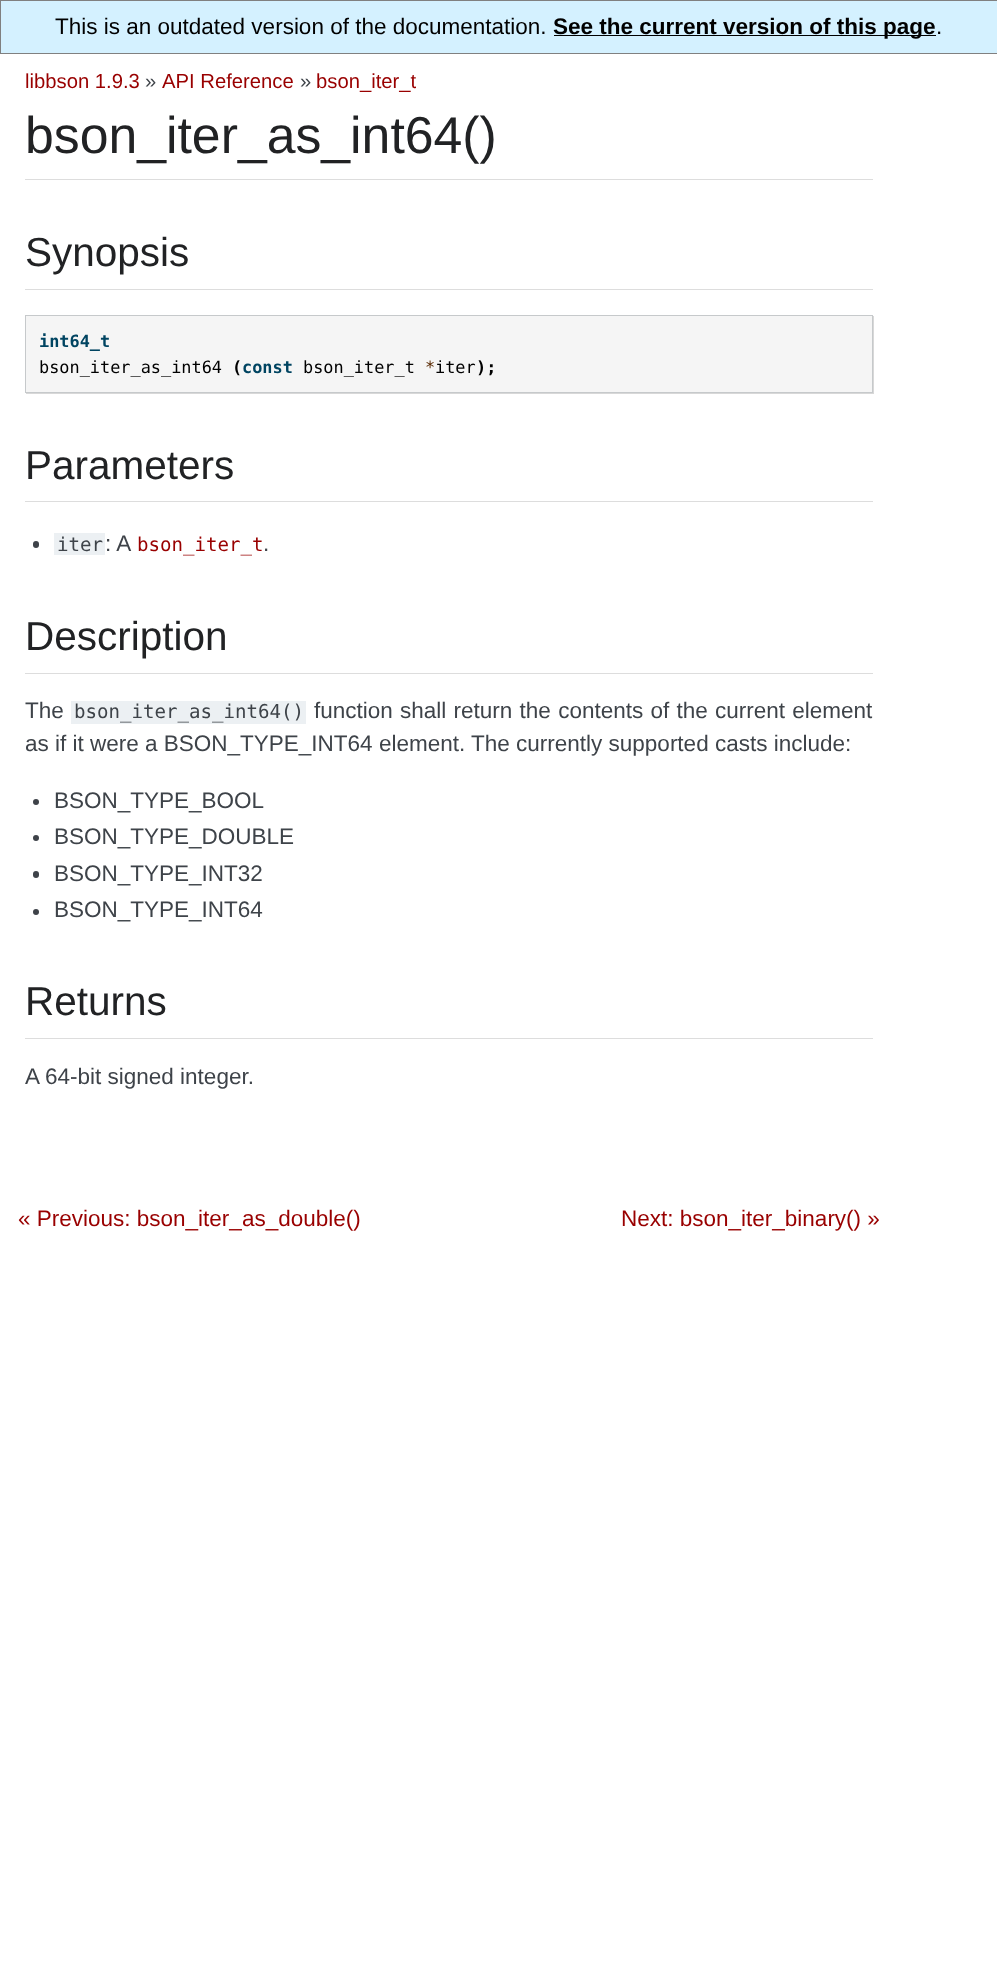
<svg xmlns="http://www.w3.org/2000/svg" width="997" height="1972">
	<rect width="100%" height="100%" fill="#FFFFFF" />
	<rect x="0.5" y="0.5" width="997" height="53" fill="#D4F1FF" stroke="#808080" />
	<text x="55" y="34" font-family="Liberation Sans" font-size="22.5" fill="#000000">This is an outdated version of the documentation.</text>
	<rect x="554" y="35" width="382" height="1" fill="#000000" />
	<text x="553" y="34" font-family="Liberation Sans" font-size="22.5" font-weight="700" fill="#000000">See the current version of this page</text>
	<text x="936" y="34" font-family="Liberation Sans" font-size="22.5" fill="#000000">.</text>
	<text x="25" y="88" font-family="Liberation Sans" font-size="20.25" fill="#990000">libbson 1.9.3</text>
	<text x="145" y="88" font-family="Liberation Sans" font-size="20.25" fill="#3E4349">»</text>
	<text x="162" y="88" font-family="Liberation Sans" font-size="20.25" fill="#990000">API Reference</text>
	<text x="300" y="88" font-family="Liberation Sans" font-size="20.25" fill="#3E4349">»</text>
	<text x="316" y="88" font-family="Liberation Sans" font-size="20.25" fill="#990000">bson_iter_t</text>
	<rect x="25" y="179" width="848" height="1" fill="#DDDDDD" />
	<text x="25" y="153" font-family="Liberation Sans" font-size="51.75" fill="#212224">bson_iter_as_int64()</text>
	<rect x="25" y="289" width="848" height="1" fill="#DDDDDD" />
	<text x="25" y="266" font-family="Liberation Sans" font-size="40.5" fill="#212224">Synopsis</text>
	<rect x="26" y="316" width="848" height="78" fill="#D8D8D8" filter="blur(0.5px)" />
	<rect x="25.5" y="315.5" width="847" height="77" fill="#F5F5F5" stroke="#C6C9CB" />
	<text x="39" y="347" font-family="DejaVu Sans Mono" font-size="16.9" font-weight="700" fill="#004461">int64_t</text>
	<text x="39" y="373" font-family="DejaVu Sans Mono" font-size="16.9" fill="#000000">bson_iter_as_int64</text>
	<text x="232" y="373" font-family="DejaVu Sans Mono" font-size="16.9" font-weight="700" fill="#000000">(</text>
	<text x="242" y="373" font-family="DejaVu Sans Mono" font-size="16.9" font-weight="700" fill="#004461">const</text>
	<text x="303" y="373" font-family="DejaVu Sans Mono" font-size="16.9" fill="#000000">bson_iter_t</text>
	<text x="425" y="373" font-family="DejaVu Sans Mono" font-size="16.9" fill="#582800">*</text>
	<text x="435" y="373" font-family="DejaVu Sans Mono" font-size="16.9" fill="#000000">iter</text>
	<text x="476" y="373" font-family="DejaVu Sans Mono" font-size="16.9" font-weight="700" fill="#000000">);</text>
	<rect x="25" y="501" width="848" height="1" fill="#DDDDDD" />
	<text x="25" y="479" font-family="Liberation Sans" font-size="40.5" fill="#212224">Parameters</text>
	<rect x="33" y="541" width="6" height="7" rx="3" fill="#3E4349" />
	<rect x="54" y="533" width="51" height="22" fill="#ECF0F3" />
	<text x="57" y="551" font-family="DejaVu Sans Mono" font-size="19.1" fill="#3E4349">iter</text>
	<text x="105" y="551" font-family="Liberation Sans" font-size="22.5" fill="#3E4349">: A</text>
	<text x="137" y="551" font-family="DejaVu Sans Mono" font-size="19.1" fill="#990000">bson_iter_t</text>
	<text x="263" y="551" font-family="Liberation Sans" font-size="22.5" fill="#3E4349">.</text>
	<rect x="25" y="673" width="848" height="1" fill="#DDDDDD" />
	<text x="25" y="650" font-family="Liberation Sans" font-size="40.5" fill="#212224">Description</text>
	<text x="25" y="718" font-family="Liberation Sans" font-size="22.5" fill="#3E4349">The</text>
	<rect x="71" y="701" width="235" height="23" fill="#ECF0F3" />
	<text x="74" y="718" font-family="DejaVu Sans Mono" font-size="19.1" fill="#3E4349">bson_iter_as_int64()</text>
	<g font-family="Liberation Sans" font-size="22.5" fill="#3E4349">
		<text x="314" y="718" word-spacing="1">function shall return the contents of the current element</text>
		<text x="25" y="751">as if it were a BSON_TYPE_INT64 element. The currently supported casts include:</text>
	</g>
	<circle cx="36" cy="802" r="3" fill="#3E4349" />
	<text x="54" y="808" font-family="Liberation Sans" font-size="22.5" fill="#3E4349">BSON_TYPE_BOOL</text>
	<circle cx="36" cy="838" r="3" fill="#3E4349" />
	<text x="54" y="844" font-family="Liberation Sans" font-size="22.5" fill="#3E4349">BSON_TYPE_DOUBLE</text>
	<rect x="33" y="871" width="6" height="7" rx="3" fill="#3E4349" />
	<text x="54" y="881" font-family="Liberation Sans" font-size="22.5" fill="#3E4349">BSON_TYPE_INT32</text>
	<circle cx="36" cy="912" r="3" fill="#3E4349" />
	<text x="54" y="917" font-family="Liberation Sans" font-size="22.5" fill="#3E4349">BSON_TYPE_INT64</text>
	<rect x="25" y="1038" width="848" height="1" fill="#DDDDDD" />
	<text x="25" y="1015" font-family="Liberation Sans" font-size="40.5" fill="#212224">Returns</text>
	<text x="25" y="1084" font-family="Liberation Sans" font-size="22.5" fill="#3E4349">A 64-bit signed integer.</text>
	<g font-family="Liberation Sans" font-size="22.5" fill="#990000">
		<text x="18" y="1226">« Previous: bson_iter_as_double()</text>
		<text x="621" y="1226">Next: bson_iter_binary() »</text>
	</g>
</svg>
